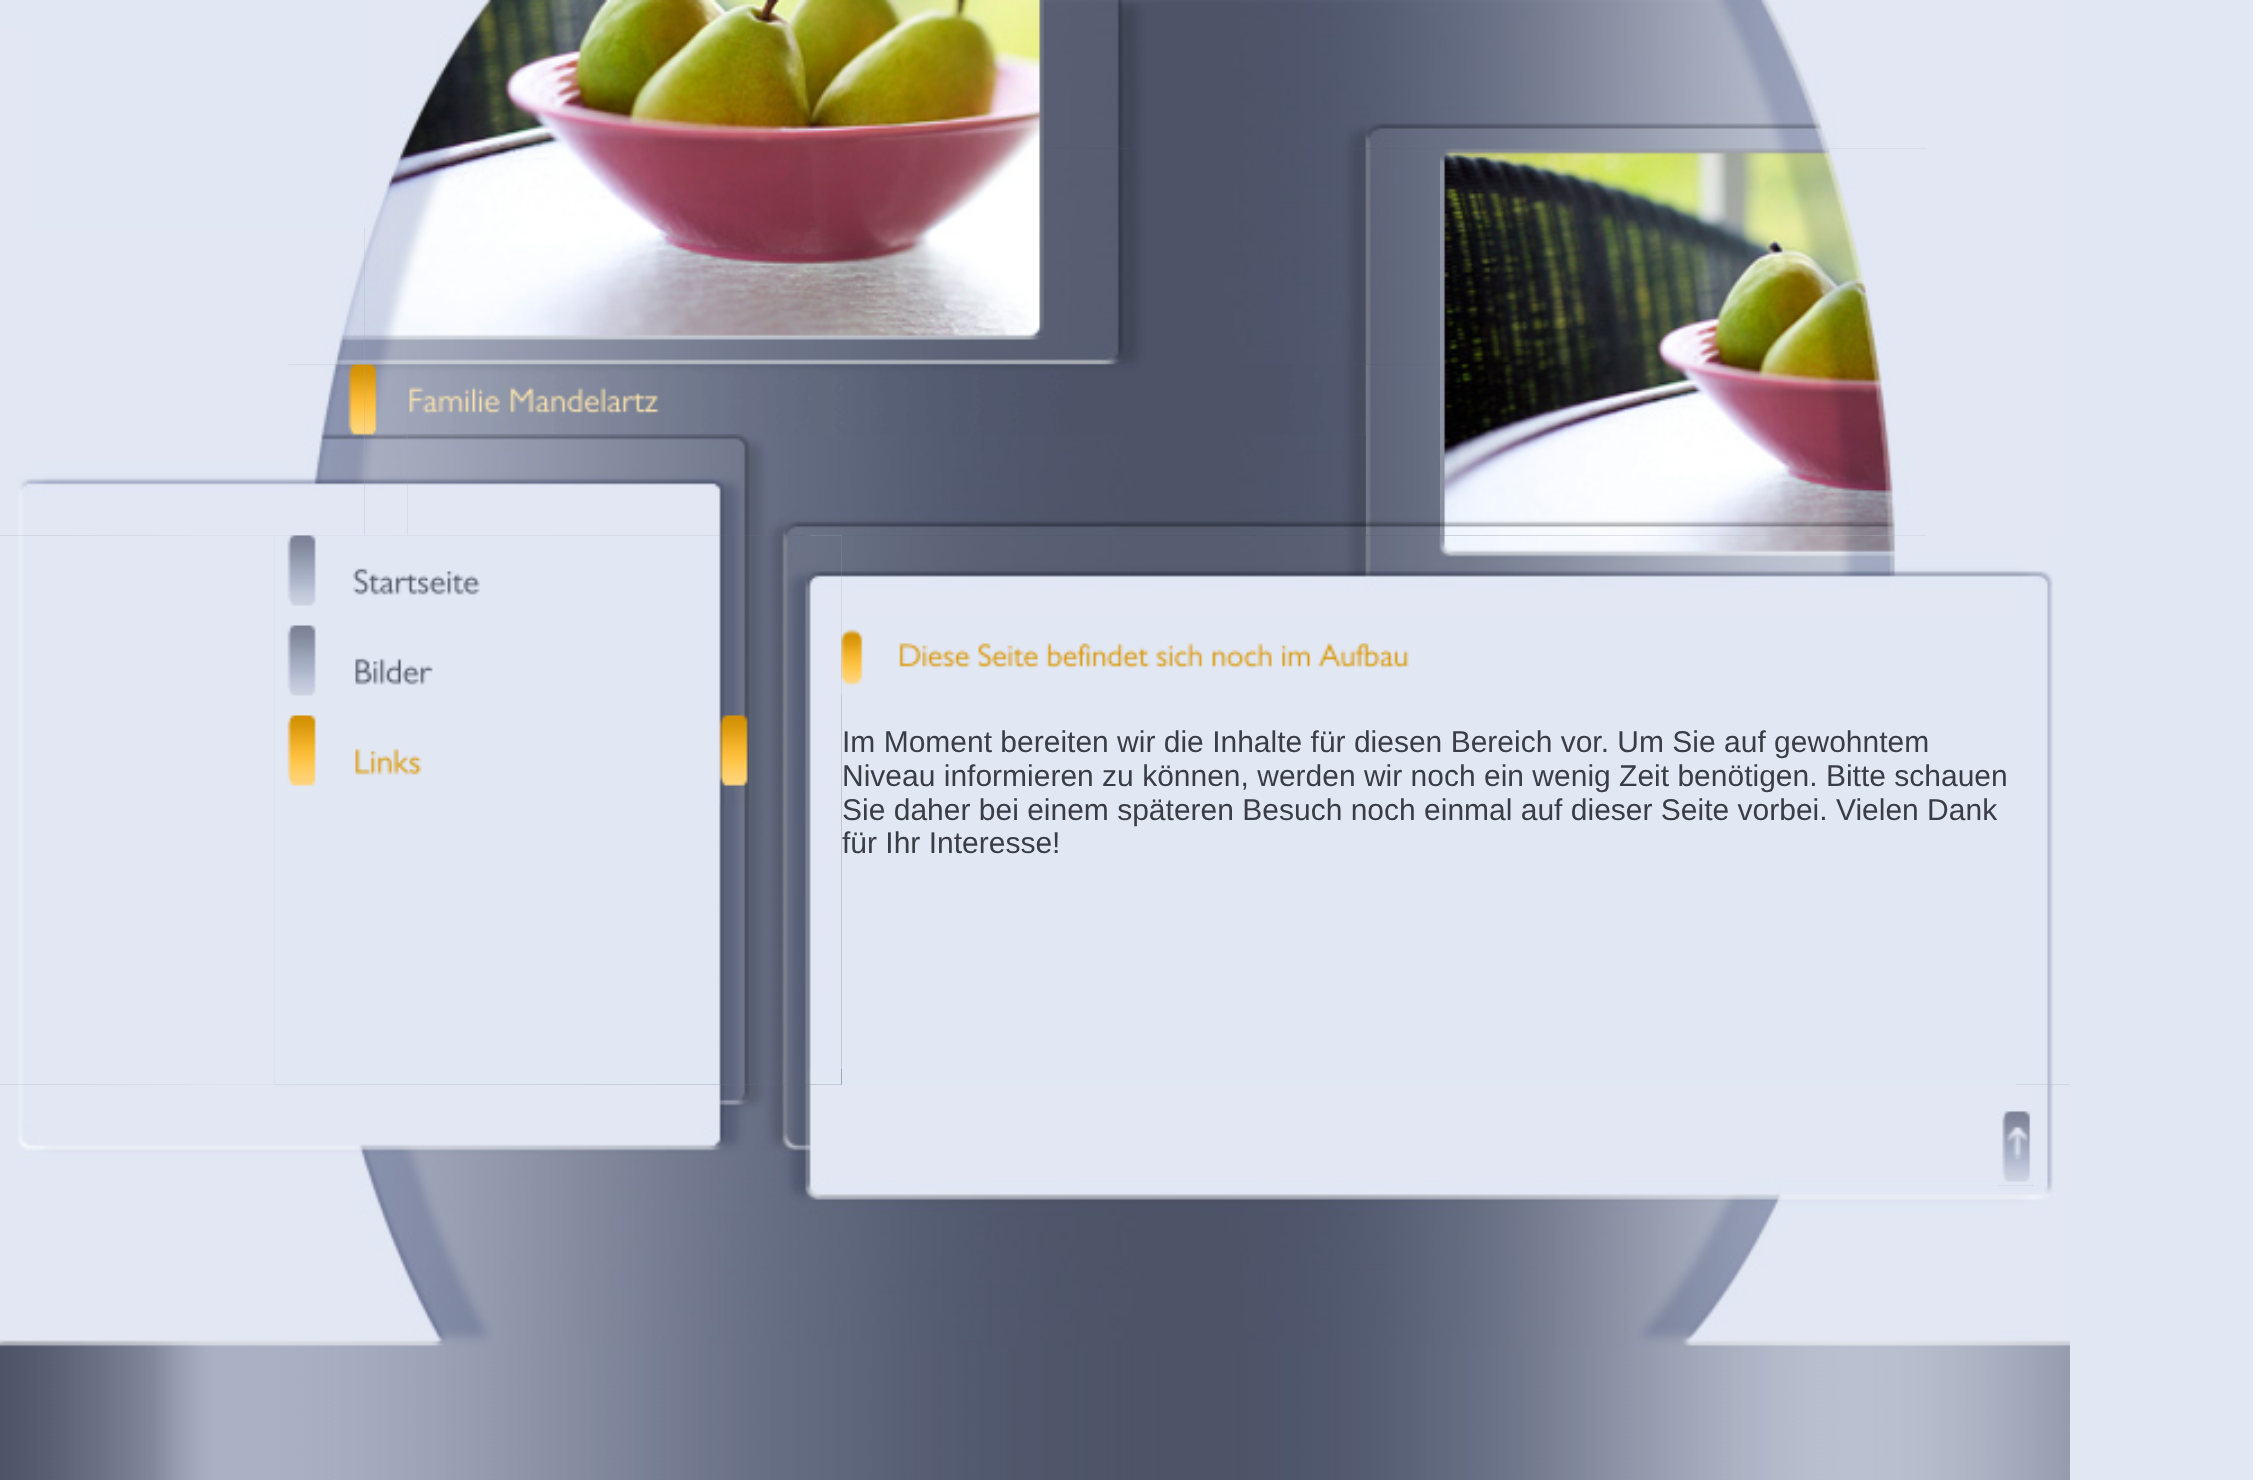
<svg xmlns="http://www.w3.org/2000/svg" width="2253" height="1480">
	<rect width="100%" height="100%" fill="#E2E7F4" />
	<image x="0" y="148" width="2070" height="1332" href="assets/img1.png" />
	<image x="0" y="535" width="275" height="550" href="assets/img15.png" />
	<image x="0" y="27" width="27" height="509" href="assets/img2.png" />
	<image x="364" y="0" width="680" height="340" href="assets/img3.png" />
	<rect x="27" y="148" width="338" height="80" fill="#E2E7F4" />
	<image x="1044" y="0" width="1026" height="149" href="assets/img4.png" />
	<image x="274" y="535" width="476" height="550" href="assets/img17.png" />
	<image x="27" y="228" width="261" height="308" href="assets/img5.png" />
	<image x="288" y="228" width="77" height="137" href="assets/img6.png" />
	<image x="364" y="339" width="680" height="26" href="assets/img7.png" />
	<image x="1044" y="148" width="396" height="217" href="assets/img8.png" />
	<image x="1440" y="148" width="486" height="388" href="assets/img9.png" />
	<rect x="1926" y="148" width="144" height="388" fill="#E3E7F3" />
	<image x="288" y="364" width="77" height="172" href="assets/img10.png" />
	<image x="364" y="364" width="44" height="172" href="assets/img11.png" />
	<image x="407" y="364" width="959" height="71" href="assets/img12.png" />
	<image x="1365" y="364" width="75" height="172" href="assets/img13.png" />
	<image x="749" y="535" width="93" height="550" href="assets/img21.png" />
	<image x="407" y="434" width="959" height="102" href="assets/img14.png" />
	<image x="0" y="535" width="275" height="550" href="assets/img16.png" />
	<image x="275" y="535" width="475" height="90" href="assets/img18.png" />
	<image x="287" y="625" width="463" height="89" href="assets/img19.png" />
	<image x="287" y="715" width="463" height="90" href="assets/img20.png" />
	<image x="781" y="535" width="61" height="534" href="assets/img22.png" />
	<rect x="842" y="614" width="1174" height="471" fill="#E2E7F4" />
	<image x="841" y="535" width="1175" height="80" href="assets/img23.png" />
	<image x="841" y="614" width="568" height="82" href="assets/img24.png" />
	<g font-family="Liberation Sans" font-size="30" fill="#3A3D45">
		<text x="842" y="752">Im Moment bereiten wir die Inhalte für diesen Bereich vor. Um Sie auf gewohntem</text>
		<text x="842" y="786">Niveau informieren zu können, werden wir noch ein wenig Zeit benötigen. Bitte schauen</text>
		<text x="842" y="820">Sie daher bei einem späteren Besuch noch einmal auf dieser Seite vorbei. Vielen Dank</text>
		<text x="842" y="853">für Ihr Interesse!</text>
	</g>
	<image x="2016" y="536" width="54" height="549" href="assets/img25.png" />
	<image x="2016" y="536" width="37" height="51" href="assets/img26.png" />
	<image x="0" y="1084" width="2070" height="23" href="assets/img27.png" />
	<image x="0" y="1107" width="1998" height="240" href="assets/img28.png" />
	<image x="1998" y="1107" width="36" height="79" href="assets/img29.png" />
	<image x="2034" y="1107" width="36" height="240" href="assets/img30.png" />
	<image x="1998" y="1185" width="36" height="161" href="assets/img31.png" />
</svg>
